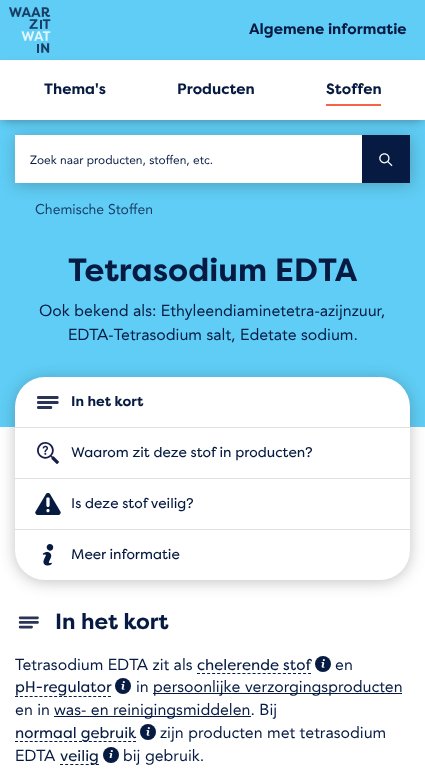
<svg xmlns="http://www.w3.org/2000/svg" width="425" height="779">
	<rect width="100%" height="100%" fill="#5FCDF5" />
	<rect x="3" y="67" width="419" height="54" fill="#222222" fill-opacity="0.4" filter="blur(5px)" />
	<image x="9" y="7" width="42" height="46" href="assets/img1.png" />
	<rect x="0" y="60" width="425" height="60" fill="#FFFFFF" />
	<g font-family="'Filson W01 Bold'" font-size="15" font-weight="700" fill="#061A42">
		<text x="249" y="34">Algemene informatie</text>
		<text x="44" y="94">Thema's</text>
		<text x="177" y="94">Producten</text>
	</g>
	<rect x="326" y="104" width="55" height="2" fill="#F7624B" />
	<text x="326" y="94" font-family="'Filson W01 Bold'" font-size="15" font-weight="700" fill="#061A42">Stoffen</text>
	<rect x="16" y="137" width="395" height="48" fill="#222222" fill-opacity="0.27" filter="blur(7.5px)" />
	<rect x="15" y="135" width="347" height="48" fill="#FFFFFF" />
	<text x="30" y="164" font-family="'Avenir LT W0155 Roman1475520'" font-size="12" fill="#061A42">Zoek naar producten, stoffen, etc.</text>
	<rect x="362" y="135" width="48" height="48" fill="#061A42" />
	<image x="379" y="153" width="14" height="14" href="assets/img2.png" />
	<text x="35" y="214" font-family="'Avenir LT W0155 Roman1475520'" font-size="14" fill="#183E66">Chemische Stoffen</text>
	<text x="68" y="281" font-family="'Filson W01 Bold'" font-size="32" font-weight="700" fill="#061A42">Tetrasodium EDTA</text>
	<g font-family="'Avenir LT W0155 Roman1475520'" font-size="16" fill="#061A42">
		<text x="39" y="316">Ook bekend als: Ethyleendiaminetetra-azijnzuur,</text>
		<text x="68" y="340">EDTA-Tetrasodium salt, Edetate sodium.</text>
	</g>
	<rect x="0" y="427" width="425" height="352" fill="#FFFFFF" />
	<rect x="15" y="379" width="395" height="203" rx="30" fill="#222222" fill-opacity="0.27" filter="blur(7.5px)" />
	<rect x="15" y="377" width="395" height="203" rx="30" fill="#FFFFFF" />
	<rect x="15" y="427" width="395" height="1" fill="#DFDFDF" />
	<image x="37" y="396" width="22" height="13" href="assets/img3.png" />
	<text x="71" y="406" font-family="'Filson W01 Bold'" font-size="14" font-weight="700" fill="#061A42">In het kort</text>
	<rect x="15" y="478" width="395" height="1" fill="#DFDFDF" />
	<image x="37" y="442" width="23" height="22" href="assets/img4.png" />
	<text x="71" y="457" font-family="'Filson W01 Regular'" font-size="14" fill="#061A42">Waarom zit deze stof in producten?</text>
	<rect x="15" y="529" width="395" height="1" fill="#DFDFDF" />
	<image x="35" y="493" width="26" height="22" href="assets/img5.png" />
	<text x="71" y="508" font-family="'Filson W01 Regular'" font-size="14" fill="#061A42">Is deze stof veilig?</text>
	<image x="42" y="544" width="12" height="22" href="assets/img6.png" />
	<text x="71" y="559" font-family="'Filson W01 Regular'" font-size="14" fill="#061A42">Meer informatie</text>
	<image x="18" y="616" width="21" height="13" href="assets/img7.png" />
	<text x="55" y="629" font-family="'Filson W01 Bold'" font-size="22" font-weight="700" fill="#061A42">In het kort</text>
	<text x="15" y="670" font-family="'Avenir LT W0155 Roman1475520'" font-size="16" fill="#061A42">Tetrasodium EDTA zit als</text>
	<path d="M197 673.5H311" fill="none" stroke="#061A42" stroke-dasharray="3 2.05" />
	<text x="197" y="670" font-family="'Filson W01 Regular'" font-size="15.25" fill="#061A42">chelerende stof</text>
	<circle cx="323" cy="664" r="8" fill="#061A42" />
	<image x="321" y="659" width="4" height="9" href="assets/img8.png" />
	<text x="335" y="670" font-family="'Avenir LT W0155 Roman1475520'" font-size="16" fill="#061A42">en</text>
	<path d="M15 696.5H111" fill="none" stroke="#061A42" stroke-dasharray="3 1.89" />
	<text x="15" y="692" font-family="'Filson W01 Regular'" font-size="15.25" fill="#061A42">pH-regulator</text>
	<circle cx="123" cy="686" r="8" fill="#061A42" />
	<image x="121" y="681" width="4" height="9" href="assets/img8.png" />
	<text x="136" y="692" font-family="'Avenir LT W0155 Roman1475520'" font-size="16" fill="#061A42">in</text>
	<rect x="153" y="693" width="249" height="1" fill="#061A42" />
	<g font-family="'Avenir LT W0155 Roman1475520'" font-size="16" fill="#061A42">
		<text x="153" y="692">persoonlijke verzorgingsproducten</text>
		<text x="15" y="715">en in</text>
	</g>
	<rect x="54" y="716" width="197" height="1" fill="#061A42" />
	<text x="54" y="715" font-family="'Avenir LT W0155 Roman1475520'" font-size="16" fill="#061A42">was- en reinigingsmiddelen. Bij</text>
	<path d="M15 741.5H136" fill="none" stroke="#061A42" stroke-dasharray="3 1.92" />
	<text x="15" y="738" font-family="'Filson W01 Regular'" font-size="15.25" fill="#061A42">normaal gebruik</text>
	<circle cx="148" cy="732" r="8" fill="#061A42" />
	<image x="146" y="727" width="4" height="9" href="assets/img8.png" />
	<g font-family="'Avenir LT W0155 Roman1475520'" font-size="16" fill="#061A42">
		<text x="160" y="738">zijn producten met tetrasodium</text>
		<text x="15" y="761">EDTA</text>
	</g>
	<path d="M60 764.5H99" fill="none" stroke="#061A42" stroke-dasharray="3 2.14" />
	<text x="60" y="761" font-family="'Filson W01 Regular'" font-size="15.25" fill="#061A42">veilig</text>
	<circle cx="111" cy="755" r="8" fill="#061A42" />
	<image x="109" y="750" width="4" height="8" href="assets/img9.png" />
	<text x="123" y="761" font-family="'Avenir LT W0155 Roman1475520'" font-size="16" fill="#061A42">bij gebruik.</text>
</svg>
